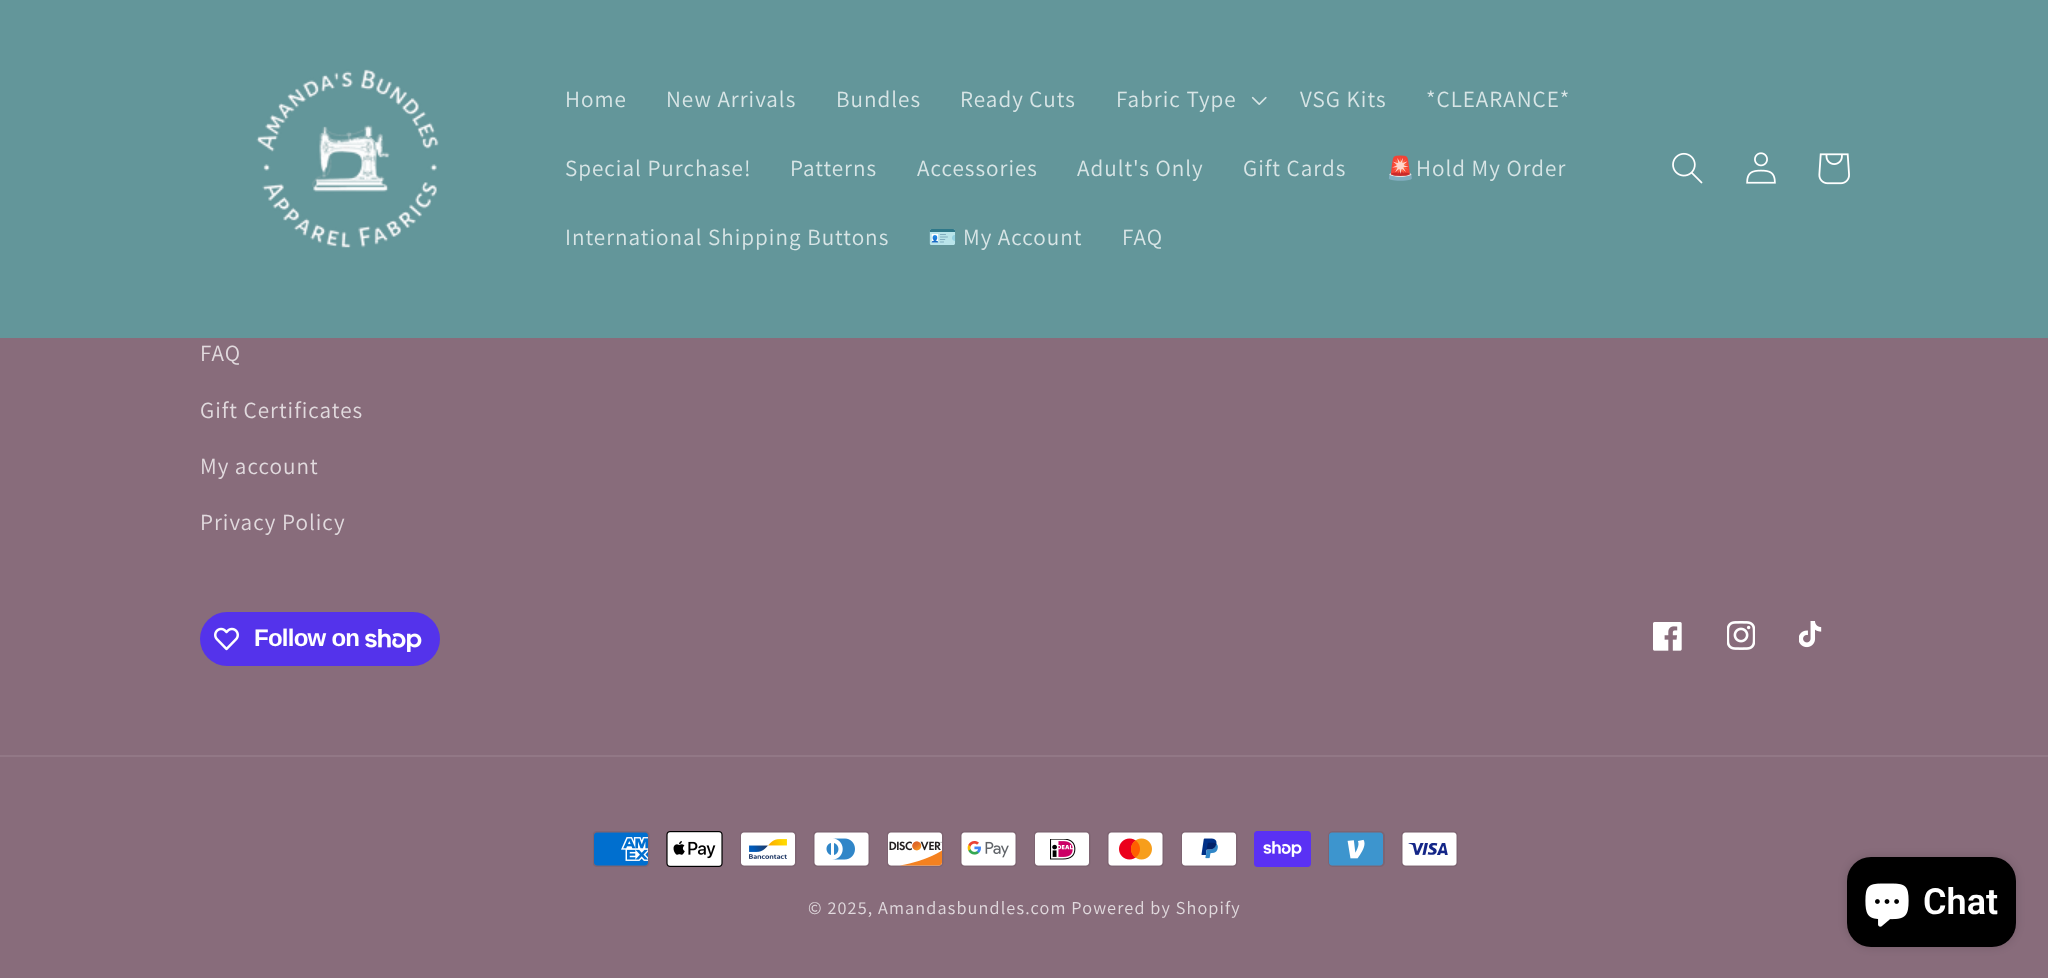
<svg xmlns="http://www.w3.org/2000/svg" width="2048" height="978">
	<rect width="100%" height="100%" fill="#886C7B" />
	<rect x="0" y="0" width="2048" height="338" fill="#63969A" />
	<image x="256" y="69" width="183" height="179" href="assets/img1.png" />
	<g font-family="Assistant" font-size="23.1" letter-spacing="1" fill="#D8E5E6">
		<text x="565" y="107">Home</text>
		<text x="666" y="107">New Arrivals</text>
		<text x="836" y="107">Bundles</text>
		<text x="960" y="107">Ready Cuts</text>
		<text x="1116" y="107">Fabric Type</text>
	</g>
	<image x="1251" y="96" width="16" height="9" href="assets/img2.png" />
	<g font-family="Assistant" font-size="23.1" letter-spacing="1" fill="#D8E5E6">
		<text x="1300" y="107">VSG Kits</text>
		<text x="1426" y="107">*CLEARANCE*</text>
		<text x="565" y="176">Special Purchase!</text>
		<text x="790" y="176">Patterns</text>
		<text x="917" y="176">Accessories</text>
		<text x="1077" y="176">Adult's Only</text>
		<text x="1243" y="176">Gift Cards</text>
	</g>
	<text x="1386" y="176" font-family="Noto Color Emoji" font-size="23.1" letter-spacing="1" fill="#D8E5E6">🚨</text>
	<g font-family="Assistant" font-size="23.1" letter-spacing="1" fill="#D8E5E6">
		<text x="1416" y="176">Hold My Order</text>
		<text x="565" y="245">International Shipping Buttons</text>
	</g>
	<text x="928" y="245" font-family="Noto Color Emoji" font-size="23.1" letter-spacing="1" fill="#D8E5E6">🪪</text>
	<g font-family="Assistant" font-size="23.1" letter-spacing="1" fill="#D8E5E6">
		<text x="963" y="245">My Account</text>
		<text x="1122" y="245">FAQ</text>
	</g>
	<image x="1672" y="152" width="31" height="32" href="assets/img3.png" />
	<image x="1746" y="152" width="30" height="32" href="assets/img4.png" />
	<image x="1818" y="153" width="32" height="32" href="assets/img5.png" />
	<g font-family="Assistant" font-size="23.1" letter-spacing="1" fill="#E1DADE">
		<text x="200" y="361">FAQ</text>
		<text x="200" y="418">Gift Certificates</text>
		<text x="200" y="474">My account</text>
		<text x="200" y="530">Privacy Policy</text>
	</g>
	<rect x="200" y="612" width="240" height="54" rx="27" fill="#5433EB" />
	<image x="214" y="627" width="25" height="24" href="assets/img6.png" />
	<text x="254" y="646" font-family="Liberation Sans" font-size="24" font-weight="700" letter-spacing="-0.75" fill="#FFFFFF">Follow on</text>
	<image x="365" y="629" width="57" height="23" href="assets/img7.png" />
	<image x="1653" y="622" width="29" height="29" href="assets/img8.png" />
	<image x="1727" y="621" width="28" height="29" href="assets/img9.png" />
	<image x="1799" y="621" width="23" height="27" href="assets/img10.png" />
	<rect x="0" y="755" width="2048" height="2" fill="#927886" />
	<image x="593" y="831" width="57" height="36" href="assets/img11.png" />
	<image x="666" y="831" width="57" height="36" href="assets/img12.png" />
	<image x="740" y="831" width="57" height="36" href="assets/img13.png" />
	<image x="813" y="831" width="57" height="36" href="assets/img14.png" />
	<image x="887" y="831" width="57" height="36" href="assets/img15.png" />
	<image x="960" y="831" width="57" height="36" href="assets/img16.png" />
	<image x="1034" y="831" width="57" height="36" href="assets/img17.png" />
	<image x="1107" y="831" width="57" height="36" href="assets/img18.png" />
	<image x="1181" y="831" width="57" height="36" href="assets/img19.png" />
	<image x="1254" y="831" width="57" height="36" href="assets/img20.png" />
	<image x="1328" y="831" width="57" height="36" href="assets/img21.png" />
	<image x="1401" y="831" width="57" height="36" href="assets/img22.png" />
	<text x="808" y="914" font-family="Assistant" font-size="18.15" letter-spacing="1.15" fill="#E1DADE">© 2025, Amandasbundles.com Powered by Shopify</text>
	<rect x="1847" y="857" width="169" height="90" rx="24" fill="#000000" fill-opacity="0.15" filter="blur(4px)" />
	<rect x="1847" y="857" width="169" height="90" rx="24" fill="#000000" />
	<image x="1865" y="883" width="44" height="44" href="assets/img23.png" />
	<text x="1923" y="914" font-family="Roboto" font-size="36" font-weight="600" fill="#FFFFFF">Chat</text>
</svg>
